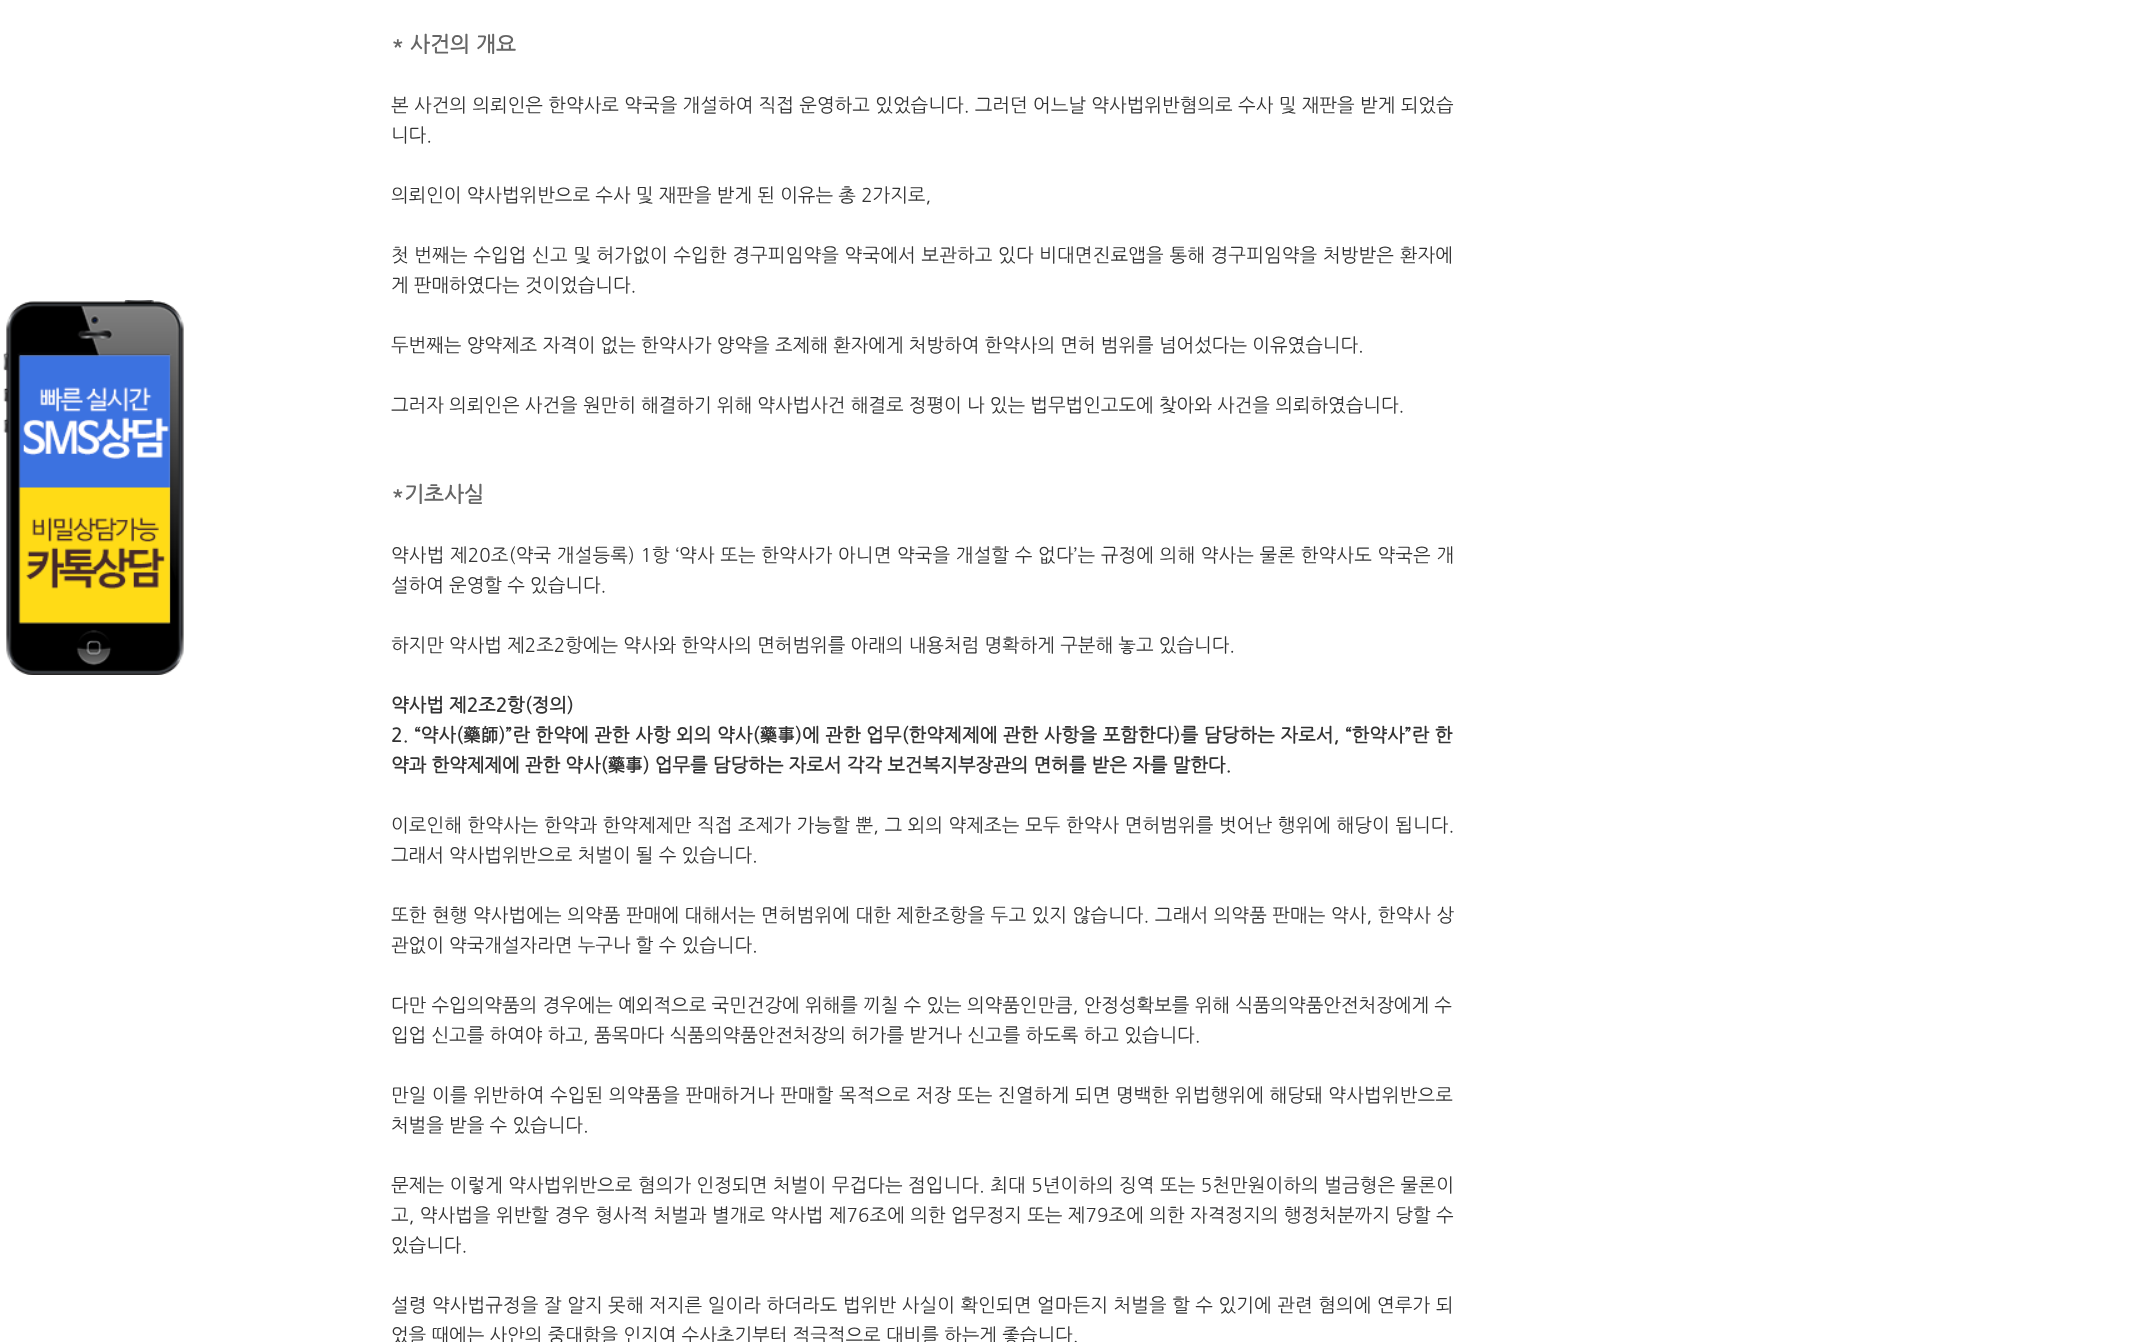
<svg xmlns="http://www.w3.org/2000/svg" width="2131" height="1342">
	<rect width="100%" height="100%" fill="#FFFFFF" />
	<image x="3" y="300" width="181" height="375" href="assets/img1.png" />
	<text x="391" y="51" font-family="NanumGothic" font-size="21.25" font-weight="700" fill="#666666">* 사건의 개요</text>
	<text x="391" y="111" font-family="NanumGothic" font-size="18.75" letter-spacing="0.05" fill="#333333">본 사건의 의뢰인은 한약사로 약국을 개설하여 직접 운영하고 있었습니다. 그러던 어느날 약사법위반혐의로 수사 및 재판을 받게 되었습</text>
	<g font-family="NanumGothic" font-size="18.75" fill="#333333">
		<text x="391" y="141">니다.</text>
		<text x="391" y="201">의뢰인이 약사법위반으로 수사 및 재판을 받게 된 이유는 총 2가지로,</text>
	</g>
	<text x="391" y="261" font-family="NanumGothic" font-size="18.75" letter-spacing="0.2" fill="#333333">첫 번째는 수입업 신고 및 허가없이 수입한 경구피임약을 약국에서 보관하고 있다 비대면진료앱을 통해 경구피임약을 처방받은 환자에</text>
	<g font-family="NanumGothic" font-size="18.75" fill="#333333">
		<text x="391" y="291">게 판매하였다는 것이었습니다.</text>
		<text x="391" y="351">두번째는 양약제조 자격이 없는 한약사가 양약을 조제해 환자에게 처방하여 한약사의 면허 범위를 넘어섰다는 이유였습니다.</text>
		<text x="391" y="411">그러자 의뢰인은 사건을 원만히 해결하기 위해 약사법사건 해결로 정평이 나 있는 법무법인고도에 찾아와 사건을 의뢰하였습니다.</text>
	</g>
	<text x="391" y="501" font-family="NanumGothic" font-size="21.25" font-weight="700" fill="#666666">*기초사실</text>
	<text x="391" y="561" font-family="NanumGothic" font-size="18.75" letter-spacing="0.2" fill="#333333">약사법 제20조(약국 개설등록) 1항 ‘약사 또는 한약사가 아니면 약국을 개설할 수 없다’는 규정에 의해 약사는 물론 한약사도 약국은 개</text>
	<g font-family="NanumGothic" font-size="18.75" fill="#333333">
		<text x="391" y="591">설하여 운영할 수 있습니다.</text>
		<text x="391" y="651">하지만 약사법 제2조2항에는 약사와 한약사의 면허범위를 아래의 내용처럼 명확하게 구분해 놓고 있습니다.</text>
	</g>
	<text x="391" y="711" font-family="NanumGothic" font-size="18.75" font-weight="700" fill="#333333">약사법 제2조2항(정의)</text>
	<text x="391" y="741" font-family="NanumGothic" font-size="18.75" font-weight="700" letter-spacing="0.15" fill="#333333">2. “약사(藥師)”란 한약에 관한 사항 외의 약사(藥事)에 관한 업무(한약제제에 관한 사항을 포함한다)를 담당하는 자로서, “한약사”란 한</text>
	<text x="391" y="771" font-family="NanumGothic" font-size="18.75" font-weight="700" fill="#333333">약과 한약제제에 관한 약사(藥事) 업무를 담당하는 자로서 각각 보건복지부장관의 면허를 받은 자를 말한다.</text>
	<text x="391" y="831" font-family="NanumGothic" font-size="18.75" letter-spacing="0.15" fill="#333333">이로인해 한약사는 한약과 한약제제만 직접 조제가 가능할 뿐, 그 외의 약제조는 모두 한약사 면허범위를 벗어난 행위에 해당이 됩니다.</text>
	<text x="391" y="861" font-family="NanumGothic" font-size="18.75" fill="#333333">그래서 약사법위반으로 처벌이 될 수 있습니다.</text>
	<text x="391" y="921" font-family="NanumGothic" font-size="18.75" letter-spacing="0.15" fill="#333333">또한 현행 약사법에는 의약품 판매에 대해서는 면허범위에 대한 제한조항을 두고 있지 않습니다. 그래서 의약품 판매는 약사, 한약사 상</text>
	<g font-family="NanumGothic" font-size="18.75" fill="#333333">
		<text x="391" y="951">관없이 약국개설자라면 누구나 할 수 있습니다.</text>
		<text x="391" y="1011">다만 수입의약품의 경우에는 예외적으로 국민건강에 위해를 끼칠 수 있는 의약품인만큼, 안정성확보를 위해 식품의약품안전처장에게 수</text>
		<text x="391" y="1041">입업 신고를 하여야 하고, 품목마다 식품의약품안전처장의 허가를 받거나 신고를 하도록 하고 있습니다.</text>
	</g>
	<text x="391" y="1101" font-family="NanumGothic" font-size="18.75" letter-spacing="0.2" fill="#333333">만일 이를 위반하여 수입된 의약품을 판매하거나 판매할 목적으로 저장 또는 진열하게 되면 명백한 위법행위에 해당돼 약사법위반으로</text>
	<text x="391" y="1131" font-family="NanumGothic" font-size="18.75" fill="#333333">처벌을 받을 수 있습니다.</text>
	<text x="391" y="1191" font-family="NanumGothic" font-size="18.75" letter-spacing="0.13" fill="#333333">문제는 이렇게 약사법위반으로 혐의가 인정되면 처벌이 무겁다는 점입니다. 최대 5년이하의 징역 또는 5천만원이하의 벌금형은 물론이</text>
	<text x="391" y="1221" font-family="NanumGothic" font-size="18.75" letter-spacing="0.08" fill="#333333">고, 약사법을 위반할 경우 형사적 처벌과 별개로 약사법 제76조에 의한 업무정지 또는 제79조에 의한 자격정지의 행정처분까지 당할 수</text>
	<text x="391" y="1251" font-family="NanumGothic" font-size="18.75" fill="#333333">있습니다.</text>
	<text x="391" y="1311" font-family="NanumGothic" font-size="18.75" letter-spacing="0.15" fill="#333333">설령 약사법규정을 잘 알지 못해 저지른 일이라 하더라도 법위반 사실이 확인되면 얼마든지 처벌을 할 수 있기에 관련 혐의에 연루가 되</text>
	<text x="391" y="1341" font-family="NanumGothic" font-size="18.75" fill="#333333">었을 때에는 사안의 중대함을 인지여 수사초기부터 적극적으로 대비를 하는게 좋습니다.</text>
</svg>
